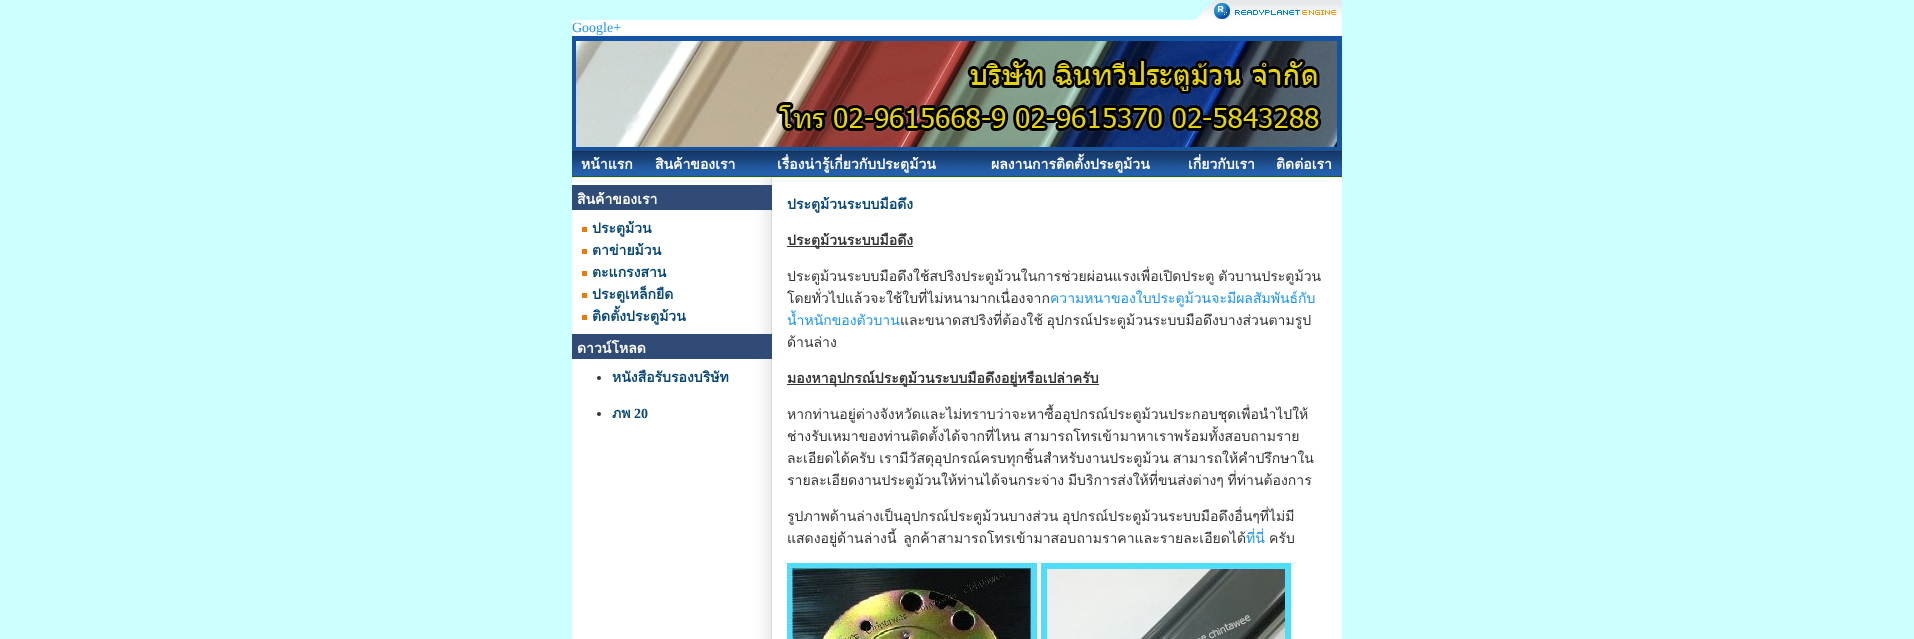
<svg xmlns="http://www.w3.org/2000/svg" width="1914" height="639">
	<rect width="100%" height="100%" fill="#CCFFFF" />
	<image x="1195" y="0" width="147" height="20" href="assets/img1.png" />
	<rect x="572" y="20" width="770" height="16" fill="#FFFFFF" />
	<text x="572" y="32" font-family="Liberation Serif" font-size="14" fill="#1895F6">Google+</text>
	<image x="572" y="36" width="770" height="115" href="assets/img2.png" />
	<image x="572" y="151" width="770" height="26" href="assets/img3.png" />
	<g font-family="Loma" font-size="14" font-weight="700" fill="#FFFFFF">
		<text x="581" y="169">หน้าแรก</text>
		<text x="655" y="169">สินค้าของเรา</text>
		<text x="777" y="169">เรื่องน่ารู้เกี่ยวกับประตูม้วน</text>
		<text x="991" y="169">ผลงานการติดตั้งประตูม้วน</text>
		<text x="1188" y="169">เกี่ยวกับเรา</text>
		<text x="1276" y="169">ติดต่อเรา</text>
	</g>
	<image x="572" y="178" width="200" height="461" href="assets/img4.png" />
	<rect x="572" y="185" width="200" height="25" fill="#314B77" />
	<text x="577" y="204" font-family="Loma" font-size="14" font-weight="700" fill="#FFFFFF">สินค้าของเรา</text>
	<rect x="582" y="227" width="5" height="5" fill="#E87B05" />
	<text x="592" y="233" font-family="Loma" font-size="14" font-weight="700" fill="#054674">ประตูม้วน</text>
	<rect x="582" y="249" width="5" height="5" fill="#E87B05" />
	<text x="592" y="255" font-family="Loma" font-size="14" font-weight="700" fill="#054674">ตาข่ายม้วน</text>
	<rect x="582" y="271" width="5" height="5" fill="#E87B05" />
	<text x="592" y="277" font-family="Loma" font-size="14" font-weight="700" fill="#054674">ตะแกรงสาน</text>
	<rect x="582" y="293" width="5" height="5" fill="#E87B05" />
	<text x="592" y="299" font-family="Loma" font-size="14" font-weight="700" fill="#054674">ประตูเหล็กยืด</text>
	<rect x="582" y="315" width="5" height="5" fill="#E87B05" />
	<text x="592" y="321" font-family="Loma" font-size="14" font-weight="700" fill="#054674">ติดตั้งประตูม้วน</text>
	<rect x="572" y="334" width="200" height="25" fill="#314B77" />
	<text x="577" y="353" font-family="Loma" font-size="14" font-weight="700" fill="#FFFFFF">ดาวน์โหลด</text>
	<circle cx="599" cy="378" r="2" fill="#333333" />
	<text x="612" y="382" font-family="Loma" font-size="14" font-weight="700" fill="#054674">หนังสือรับรองบริษัท</text>
	<circle cx="599" cy="414" r="2" fill="#333333" />
	<text x="612" y="418" font-family="Loma" font-size="14" font-weight="700" fill="#054674">ภพ</text>
	<text x="634" y="418" font-family="Liberation Serif" font-size="14" font-weight="700" fill="#054674">20</text>
	<rect x="772" y="178" width="570" height="461" fill="#FFFFFF" />
	<text x="787" y="209" font-family="Loma" font-size="14" font-weight="700" fill="#054674">ประตูม้วนระบบมือดึง</text>
	<rect x="787" y="246" width="126" height="1" fill="#333333" />
	<text x="787" y="245" font-family="Loma" font-size="14" font-weight="700" fill="#333333">ประตูม้วนระบบมือดึง</text>
	<g font-family="Loma" font-size="14" fill="#333333">
		<text x="787" y="281" word-spacing="-1">ประตูม้วนระบบมือดึงใช้สปริงประตูม้วนในการช่วยผ่อนแรงเพื่อเปิดประตู ตัวบานประตูม้วน</text>
		<text x="787" y="303">โดยทั่วไปแล้วจะใช้ใบที่ไม่หนามากเนื่องจาก</text>
	</g>
	<g font-family="Loma" font-size="14" fill="#1895F6">
		<text x="1050" y="303">ความหนาของใบประตูม้วนจะมีผลสัมพันธ์กับ</text>
		<text x="787" y="325">น้ำหนักของตัวบาน</text>
	</g>
	<g font-family="Loma" font-size="14" fill="#333333">
		<text x="900" y="325" word-spacing="-1">และขนาดสปริงที่ต้องใช้ อุปกรณ์ประตูม้วนระบบมือดึงบางส่วนตามรูป</text>
		<text x="787" y="347">ด้านล่าง</text>
	</g>
	<rect x="787" y="384" width="312" height="1" fill="#333333" />
	<text x="787" y="383" font-family="Loma" font-size="14" font-weight="700" fill="#333333">มองหาอุปกรณ์ประตูม้วนระบบมือดึงอยู่หรือเปล่าครับ</text>
	<g font-family="Loma" font-size="14" fill="#333333">
		<text x="787" y="419">หากท่านอยู่ต่างจังหวัดและไม่ทราบว่าจะหาซื้ออุปกรณ์ประตูม้วนประกอบชุดเพื่อนำไปให้</text>
		<text x="787" y="441" word-spacing="-1">ช่างรับเหมาของท่านติดตั้งได้จากที่ไหน สามารถโทรเข้ามาหาเราพร้อมทั้งสอบถามราย</text>
		<text x="787" y="463" word-spacing="-1">ละเอียดได้ครับ เรามีวัสดุอุปกรณ์ครบทุกชิ้นสำหรับงานประตูม้วน สามารถให้คำปรึกษาใน</text>
		<text x="787" y="485" word-spacing="-1">รายละเอียดงานประตูม้วนให้ท่านได้จนกระจ่าง มีบริการส่งให้ที่ขนส่งต่างๆ ที่ท่านต้องการ</text>
		<text x="787" y="521" word-spacing="-1">รูปภาพด้านล่างเป็นอุปกรณ์ประตูม้วนบางส่วน อุปกรณ์ประตูม้วนระบบมือดึงอื่นๆที่ไม่มี</text>
		<text x="787" y="543" word-spacing="2">แสดงอยู่ด้านล่างนี้ ลูกค้าสามารถโทรเข้ามาสอบถามราคาและรายละเอียดได้</text>
	</g>
	<text x="1246" y="543" font-family="Loma" font-size="14" fill="#1895F6">ที่นี่</text>
	<text x="1269" y="543" font-family="Loma" font-size="14" fill="#333333">ครับ</text>
	<image x="787" y="563" width="250" height="76" href="assets/img5.png" />
	<image x="1041" y="563" width="250" height="76" href="assets/img6.png" />
</svg>
